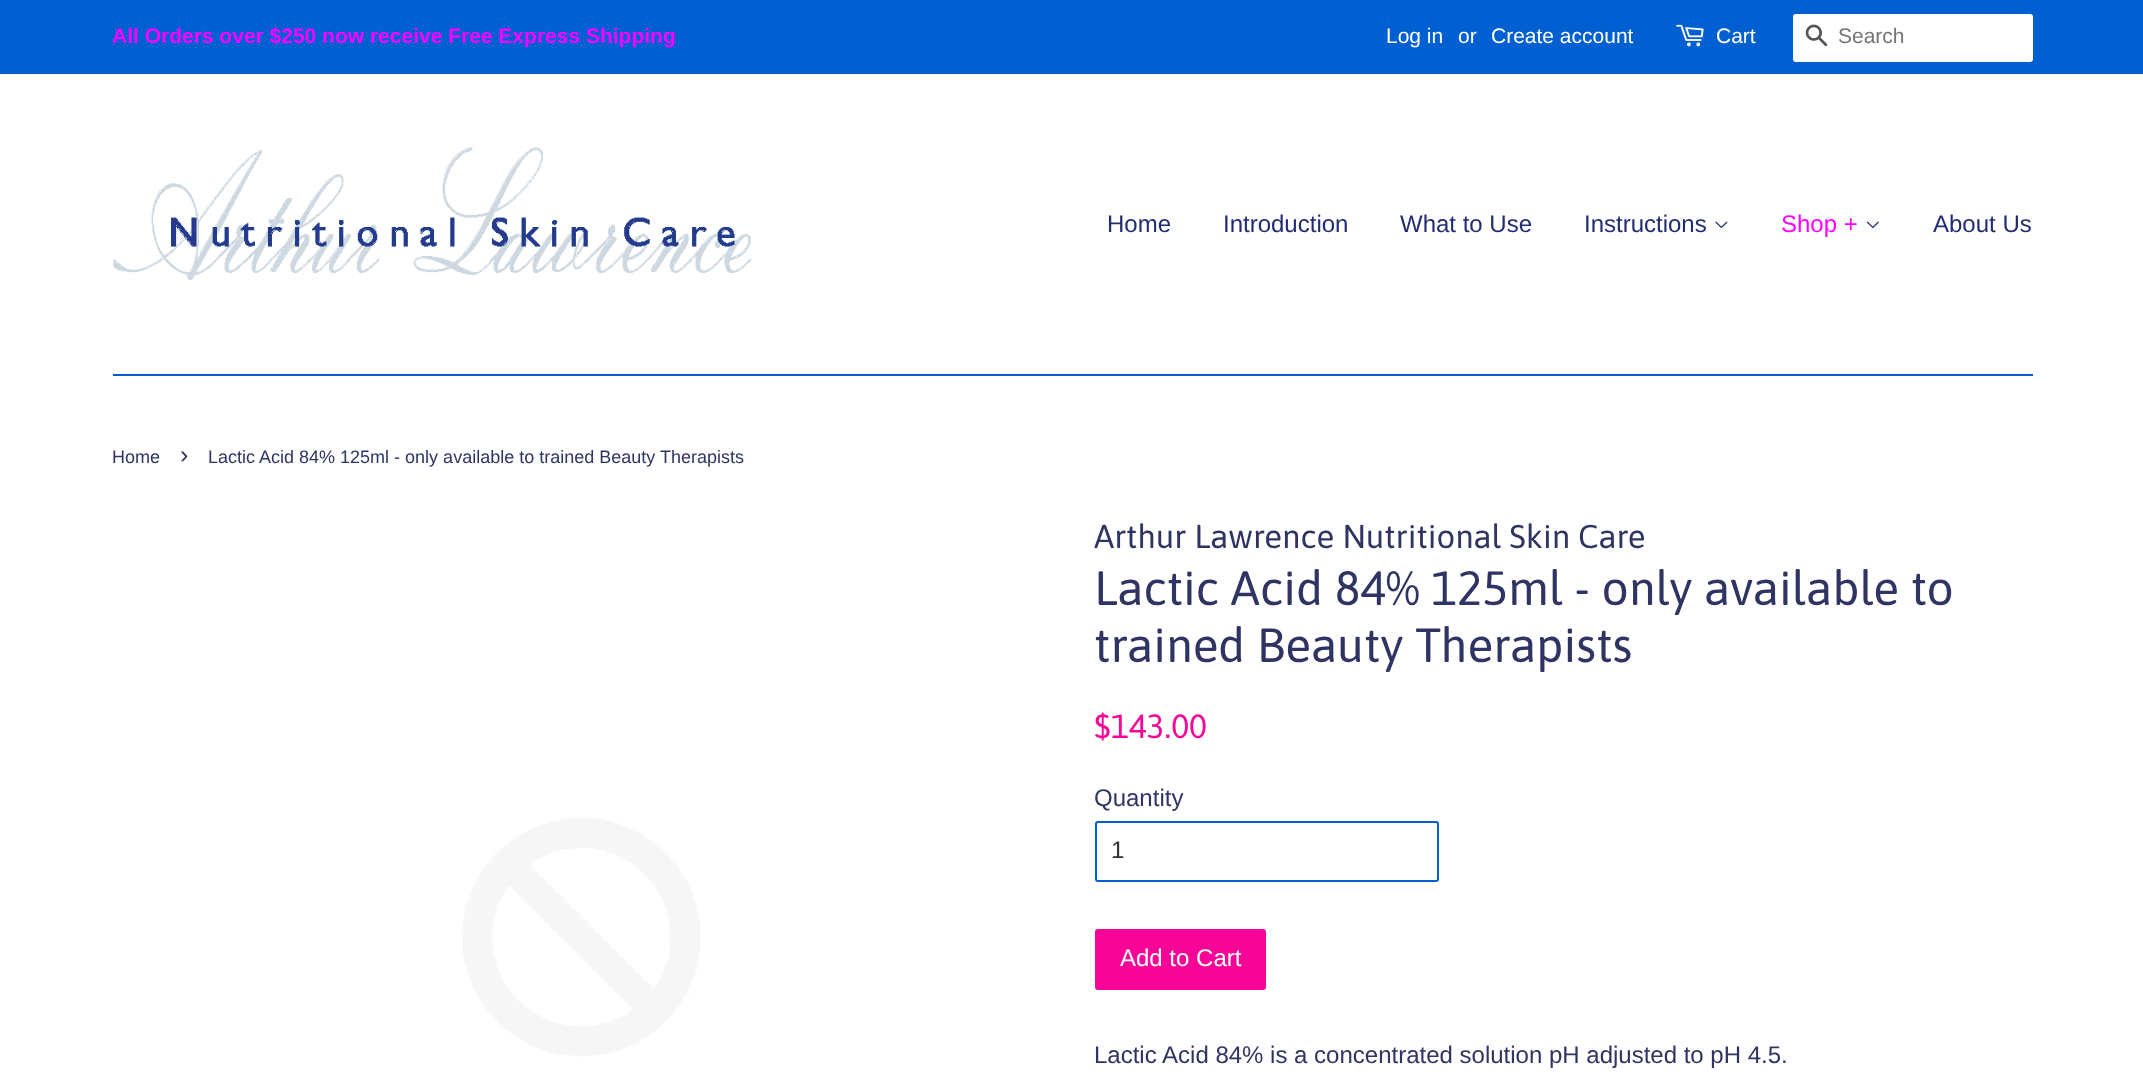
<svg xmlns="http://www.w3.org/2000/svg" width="2143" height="1088">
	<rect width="100%" height="100%" fill="#FFFFFF" />
	<rect x="0" y="0" width="2143" height="74" fill="#005FD1" />
	<text x="112" y="43" font-family="Liberation Sans" font-size="21" font-weight="700" fill="#FF00FF">All Orders over $250 now receive Free Express Shipping</text>
	<g font-family="Liberation Sans" font-size="21" fill="#FFFFFF">
		<text x="1386" y="43">Log in</text>
		<text x="1458" y="43">or</text>
		<text x="1491" y="43">Create account</text>
	</g>
	<image x="1676" y="24" width="28" height="23" href="assets/img1.png" />
	<text x="1716" y="43" font-family="Liberation Sans" font-size="21" fill="#FFFFFF">Cart</text>
	<rect x="1793" y="14" width="240" height="48" rx="3" fill="#FFFFFF" />
	<image x="1805" y="24" width="23" height="23" href="assets/img2.png" />
	<text x="1838" y="43" font-family="Liberation Sans" font-size="21" fill="#757575">Search</text>
	<rect x="113" y="374" width="1920" height="2" fill="#005FD1" />
	<image x="113" y="147" width="639" height="133" href="assets/img3.png" />
	<g font-family="Liberation Sans" font-size="24" fill="#222C72">
		<text x="1107" y="232">Home</text>
		<text x="1223" y="232">Introduction</text>
		<text x="1400" y="232">What to Use</text>
		<text x="1584" y="232">Instructions</text>
	</g>
	<image x="1715" y="221" width="13" height="8" href="assets/img4.png" />
	<text x="1781" y="232" font-family="Liberation Sans" font-size="24" fill="#FF00FF">Shop +</text>
	<image x="1866" y="221" width="13" height="8" href="assets/img5.png" />
	<text x="1933" y="232" font-family="Liberation Sans" font-size="24" fill="#222C72">About Us</text>
	<text x="112" y="463" font-family="Liberation Sans" font-size="18" fill="#2F3463">Home</text>
	<text x="180" y="463" font-family="Liberation Sans" font-size="25" fill="#2F3463">›</text>
	<text x="208" y="463" font-family="Liberation Sans" font-size="18" fill="#2F3463">Lactic Acid 84% 125ml - only available to trained Beauty Therapists</text>
	<image x="461" y="818" width="239" height="239" href="assets/img6.png" />
	<text x="1094" y="548" font-family="Asap" font-size="33" fill="#2F3463">Arthur Lawrence Nutritional Skin Care</text>
	<g font-family="Asap" font-size="48" fill="#2F3463">
		<text x="1094" y="605">Lactic Acid 84% 125ml - only available to</text>
		<text x="1094" y="662">trained Beauty Therapists</text>
	</g>
	<text x="1094" y="738" font-family="Asap" font-size="33.5" fill="#F60597">$143.00</text>
	<text x="1094" y="806" font-family="Liberation Sans" font-size="24" fill="#2F3463">Quantity</text>
	<rect x="1096" y="822" width="342" height="59" rx="2" fill="none" stroke="#005FD1" stroke-width="2" />
	<text x="1111" y="858" font-family="Liberation Sans" font-size="24" fill="#333333">1</text>
	<rect x="1095" y="929" width="171" height="61" rx="3" fill="#F60597" />
	<text x="1120" y="966" font-family="Liberation Sans" font-size="24" fill="#FFFFFF">Add to Cart</text>
	<text x="1094" y="1063" font-family="Liberation Sans" font-size="24" fill="#2F3463">Lactic Acid 84% is a concentrated solution pH adjusted to pH 4.5.</text>
</svg>
